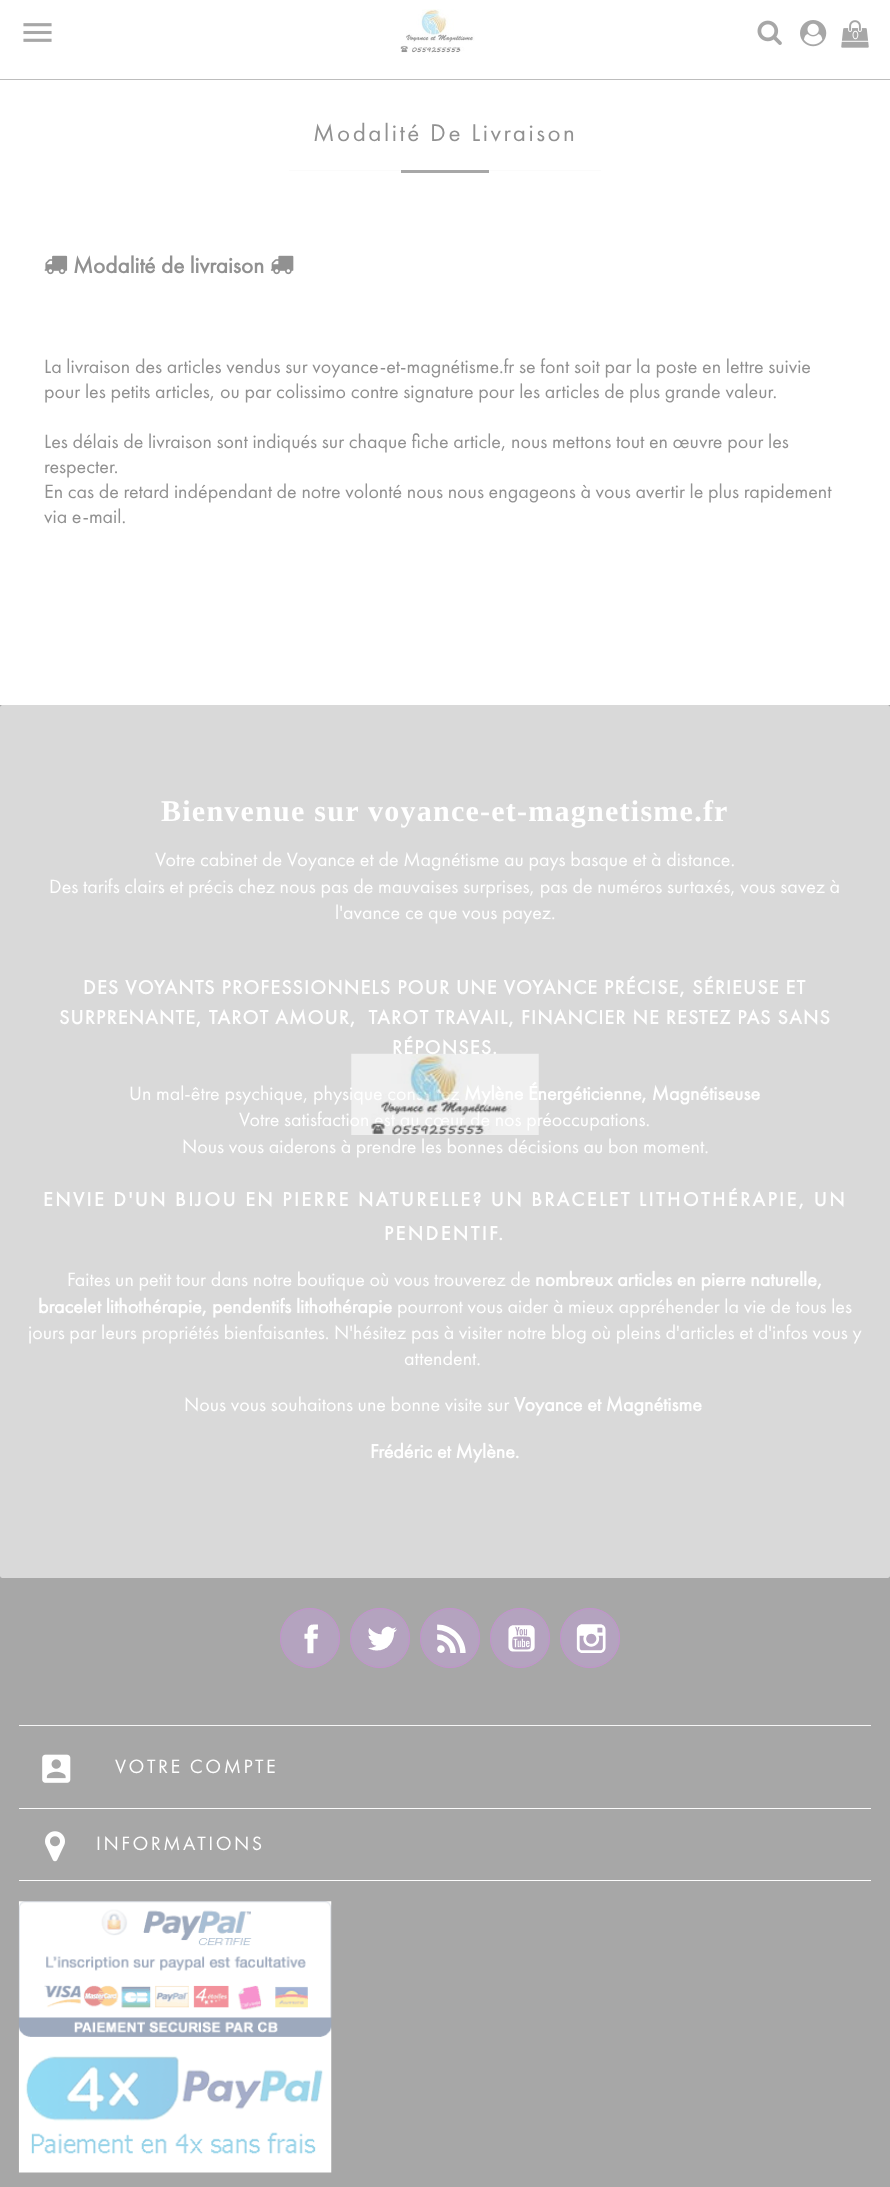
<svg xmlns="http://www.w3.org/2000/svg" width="890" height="2187">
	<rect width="100%" height="100%" fill="#FFFFFF" />
	<rect x="0" y="79" width="890" height="1" fill="#BDBDBD" />
	<image x="757" y="20" width="25" height="25" href="assets/img1.png" />
	<image x="800" y="20" width="27" height="27" href="assets/img2.png" />
	<image x="23" y="23" width="29" height="19" href="assets/img3.png" />
	<image x="400" y="9" width="75" height="44" href="assets/img4.png" />
	<image x="841" y="20" width="28" height="28" href="assets/img5.png" />
	<text x="852" y="39" font-family="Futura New" font-size="12" fill="#FFFFFF">0</text>
	<text x="313" y="141" font-family="Futura New" font-size="25" letter-spacing="2.5" fill="#919191">Modalité De Livraison</text>
	<rect x="289" y="170" width="312" height="1" fill="#FBFBFB" />
	<rect x="401" y="170" width="88" height="3" fill="#A7A7A7" />
	<image x="44" y="255" width="24" height="20" href="assets/img6.png" />
	<text x="73" y="273" font-family="Futura New" font-size="23.25" font-weight="700" fill="#919191">Modalité de livraison</text>
	<image x="270" y="255" width="24" height="20" href="assets/img7.png" />
	<g font-family="Futura New" font-size="20" fill="#919191">
		<text x="44" y="373">La livraison des articles vendus sur voyance-et-magnétisme.fr se font soit par la poste en lettre suivie</text>
		<text x="44" y="398">pour les petits articles, ou par colissimo contre signature pour les articles de plus grande valeur.</text>
		<text x="44" y="448">Les délais de livraison sont indiqués sur chaque fiche article, nous mettons tout en œuvre pour les</text>
		<text x="44" y="473">respecter.</text>
		<text x="44" y="498">En cas de retard indépendant de notre volonté nous nous engageons à vous avertir le plus rapidement</text>
		<text x="44" y="523">via e-mail.</text>
	</g>
	<rect x="0" y="1578" width="890" height="609" fill="#A7A7A7" />
	<rect x="0" y="705" width="890" height="873" fill="#A0A0A0" />
	<rect x="0" y="705" width="890" height="873" rx="2.5" fill="#D9D9D9" />
	<text x="161" y="821" font-family="Liberation Serif" font-size="30" font-weight="700" letter-spacing="1.25" fill="#FFFFFF">Bienvenue sur voyance-et-magnetisme.fr</text>
	<g font-family="Futura New" font-size="20" fill="#FFFFFF">
		<text x="155" y="866">Votre cabinet de Voyance et de Magnétisme au pays basque et à distance.</text>
		<text x="49" y="893">Des tarifs clairs et précis chez nous pas de mauvaises surprises, pas de numéros surtaxés, vous savez à</text>
		<text x="335" y="919">l'avance ce que vous payez.</text>
	</g>
	<g font-family="Futura New" font-size="20" font-weight="700" letter-spacing="1.25" fill="#FFFFFF">
		<text x="83" y="994">DES VOYANTS PROFESSIONNELS POUR UNE VOYANCE PRÉCISE, SÉRIEUSE ET</text>
		<text x="59" y="1024" xml:space="preserve">SURPRENANTE, TAROT AMOUR,  TAROT TRAVAIL, FINANCIER NE RESTEZ PAS SANS</text>
		<text x="392" y="1054">RÉPONSES.</text>
	</g>
	<text x="129" y="1100" font-family="Futura New" font-size="20" fill="#FFFFFF">Un mal-être psychique, physique consultez</text>
	<text x="464" y="1100" font-family="Futura New" font-size="20" font-weight="700" fill="#FFFFFF">Mylène Énergéticienne, Magnétiseuse</text>
	<g font-family="Futura New" font-size="20" fill="#FFFFFF">
		<text x="239" y="1126">Votre satisfaction est au cœur de nos préoccupations.</text>
		<text x="182" y="1153">Nous vous aiderons à prendre les bonnes décisions au bon moment.</text>
	</g>
	<g font-family="Futura New" font-size="20" font-weight="700" letter-spacing="2.5" fill="#FFFFFF">
		<text x="43" y="1206">ENVIE D'UN BIJOU EN PIERRE NATURELLE? UN BRACELET LITHOTHÉRAPIE, UN</text>
		<text x="384" y="1240">PENDENTIF.</text>
	</g>
	<text x="67" y="1286" font-family="Futura New" font-size="20" fill="#FFFFFF">Faites un petit tour dans notre boutique où vous trouverez de</text>
	<g font-family="Futura New" font-size="20" font-weight="700" fill="#FFFFFF">
		<text x="535" y="1286">nombreux articles en pierre naturelle,</text>
		<text x="38" y="1313">bracelet lithothérapie, pendentifs lithothérapie</text>
	</g>
	<g font-family="Futura New" font-size="20" fill="#FFFFFF">
		<text x="397" y="1313">pourront vous aider à mieux appréhender la vie de tous les</text>
		<text x="28" y="1339">jours par leurs propriétés bienfaisantes. N'hésitez pas à visiter notre blog où pleins d'articles et d'infos vous y</text>
		<text x="404" y="1365">attendent.</text>
		<text x="184" y="1411">Nous vous souhaitons une bonne visite sur</text>
	</g>
	<g font-family="Futura New" font-size="20" font-weight="700" fill="#FFFFFF">
		<text x="514" y="1411">Voyance et Magnétisme</text>
		<text x="370" y="1458">Frédéric et Mylène.</text>
	</g>
	<circle cx="310" cy="1638" r="30" fill="#B4A3BF" />
	<image x="304" y="1624" width="14" height="30" href="assets/img8.png" />
	<circle cx="310" cy="1638" r="29.5" fill="none" stroke="#C491CD" />
	<circle cx="380" cy="1638" r="30" fill="#B4A3BF" />
	<image x="368" y="1626" width="29" height="25" href="assets/img9.png" />
	<circle cx="380" cy="1638" r="29.5" fill="none" stroke="#C491CD" />
	<circle cx="450" cy="1638" r="30" fill="#B4A3BF" />
	<image x="437" y="1624" width="29" height="29" href="assets/img10.png" />
	<circle cx="450" cy="1638" r="29.5" fill="none" stroke="#C491CD" />
	<circle cx="520" cy="1638" r="30" fill="#B4A3BF" />
	<image x="508" y="1625" width="27" height="27" href="assets/img11.png" />
	<circle cx="520" cy="1638" r="29.5" fill="none" stroke="#C491CD" />
	<circle cx="590" cy="1638" r="30" fill="#B4A3BF" />
	<image x="576" y="1624" width="30" height="29" href="assets/img12.png" />
	<circle cx="590" cy="1638" r="29.5" fill="none" stroke="#C491CD" />
	<rect x="19" y="1725" width="852" height="1" fill="#F6F6F6" />
	<image x="42" y="1754" width="29" height="29" href="assets/img13.png" />
	<rect x="19" y="1808" width="852" height="1" fill="#FBFBFB" />
	<text x="115" y="1773" font-family="Futura New" font-size="20" letter-spacing="2.5" fill="#FFFFFF">VOTRE COMPTE</text>
	<rect x="19" y="1880" width="852" height="1" fill="#FBFBFB" />
	<image x="45" y="1831" width="20" height="31" href="assets/img14.png" />
	<text x="96" y="1850" font-family="Futura New" font-size="20" letter-spacing="2.5" fill="#FFFFFF">INFORMATIONS</text>
	<image x="18" y="1901" width="314" height="272" href="assets/img15.png" />
	<image x="351" y="1053" width="188" height="82" href="assets/img16.png" />
</svg>
